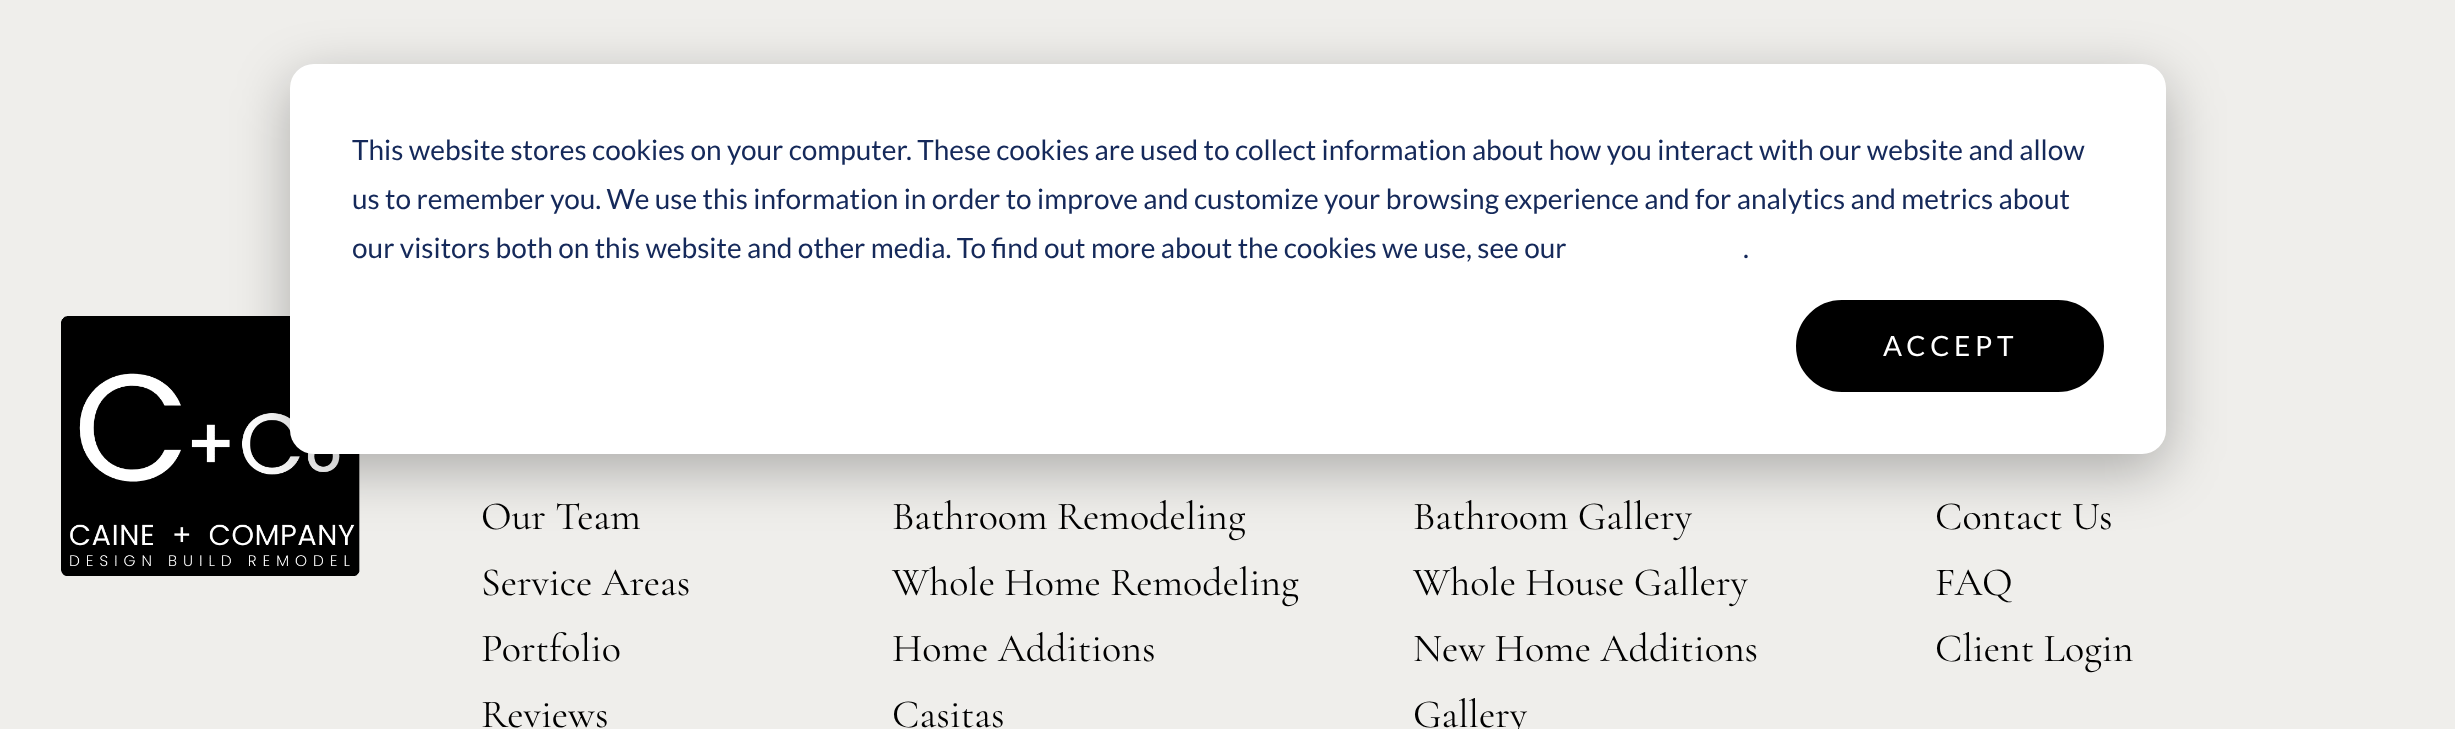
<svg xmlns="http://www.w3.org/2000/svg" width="2455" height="729">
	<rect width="100%" height="100%" fill="#EFEEEB" />
	<image x="61" y="316" width="299" height="260" href="assets/img1.png" />
	<rect x="290" y="80" width="1876" height="390" rx="24" fill="#000000" fill-opacity="0.28" filter="blur(28px)" />
	<rect x="290" y="64" width="1876" height="390" rx="24" fill="#FFFFFF" />
	<g font-family="Lato" font-size="28" fill="#15295A">
		<text x="352" y="160">This website stores cookies on your computer. These cookies are used to collect information about how you interact with our website and allow</text>
		<text x="352" y="209">us to remember you. We use this information in order to improve and customize your browsing experience and for analytics and metrics about</text>
		<text x="352" y="258">our visitors both on this website and other media. To find out more about the cookies we use, see our</text>
		<text x="1743" y="258">.</text>
	</g>
	<rect x="1797" y="301" width="306" height="90" rx="45" fill="#000000" stroke="#000000" stroke-width="2" />
	<text x="1883" y="356" font-family="Lato" font-size="28" letter-spacing="4.75" fill="#FFFFFF">ACCEPT</text>
	<g font-family="Cormorant Garamond" font-size="40" fill="#000000">
		<text x="481" y="529">Our Team</text>
		<text x="481" y="595">Service Areas</text>
		<text x="481" y="661">Portfolio</text>
		<text x="481" y="727">Reviews</text>
		<text x="892" y="529">Bathroom Remodeling</text>
		<text x="892" y="595">Whole Home Remodeling</text>
		<text x="892" y="661">Home Additions</text>
		<text x="892" y="727">Casitas</text>
		<text x="1413" y="529">Bathroom Gallery</text>
		<text x="1413" y="595">Whole House Gallery</text>
		<text x="1413" y="661">New Home Additions</text>
		<text x="1413" y="727">Gallery</text>
		<text x="1935" y="529">Contact Us</text>
		<text x="1935" y="595">FAQ</text>
		<text x="1935" y="661">Client Login</text>
	</g>
</svg>
